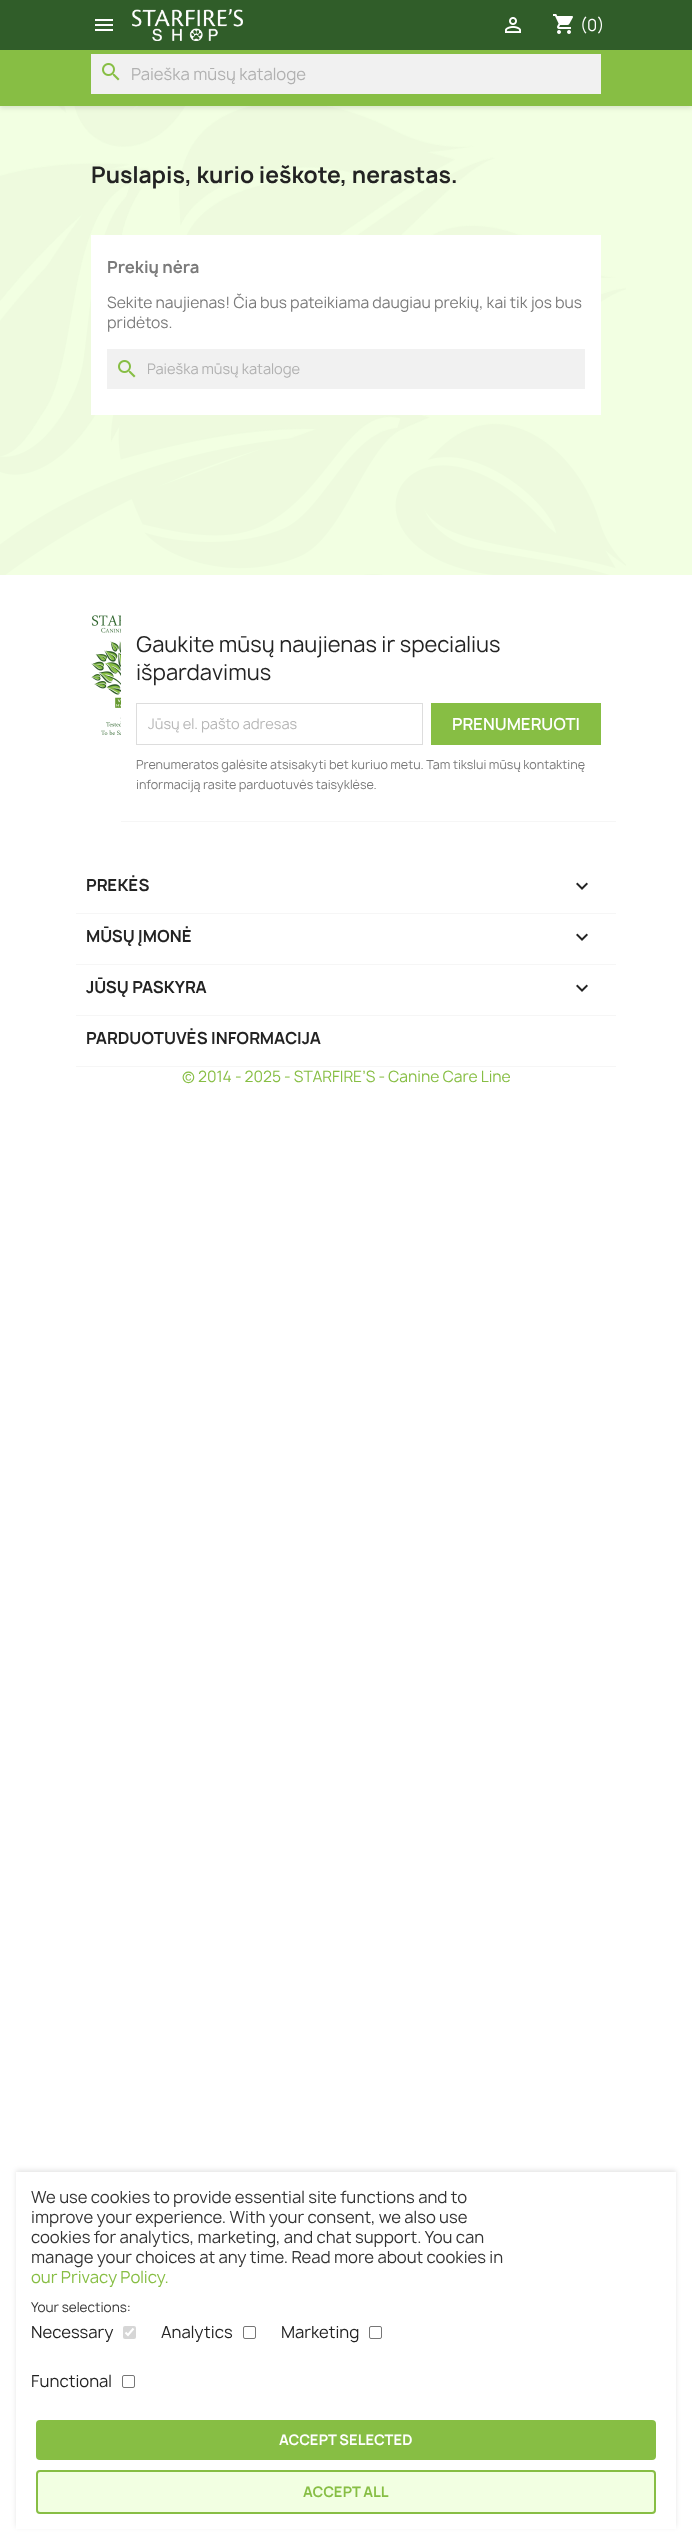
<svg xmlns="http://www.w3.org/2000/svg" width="692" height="2545">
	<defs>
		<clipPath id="clip1"><path d="M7 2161H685V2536H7ZM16 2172H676V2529H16Z" clip-rule="evenodd" /></clipPath>
	</defs>
	<rect width="100%" height="100%" fill="#FFFFFF" />
	<rect x="0" y="106" width="692" height="469" fill="#F2FFE2" />
	<image x="0" y="106" width="626" height="469" href="assets/img6.png" />
	<rect x="0" y="2" width="692" height="106" fill="#000000" fill-opacity="0.11" filter="blur(2.5px)" />
	<rect x="0" y="0" width="692" height="50" fill="#305D29" />
	<image x="95" y="19" width="18" height="12" href="assets/img1.png" />
	<image x="132" y="9" width="111" height="32" href="assets/img2.png" />
	<image x="505" y="17" width="16" height="16" href="assets/img3.png" />
	<image x="553" y="14" width="20" height="20" href="assets/img4.png" />
	<text x="580" y="31" font-family="Manrope" font-size="16" fill="#FFFFFF">(0)</text>
	<rect x="0" y="50" width="692" height="56" fill="#87BE44" />
	<rect x="91" y="54" width="510" height="40" fill="#F1F1F1" />
	<image x="102" y="63" width="18" height="18" href="assets/img5.png" />
	<text x="131" y="80" font-family="Manrope" font-size="16" fill="#B1B1B1">Paieška mūsų kataloge</text>
	<text x="91" y="183" font-family="Manrope" font-size="22" font-weight="700" fill="#232323">Puslapis, kurio ieškote, nerastas.</text>
	<rect x="91" y="235" width="510" height="180" fill="#FFFFFF" />
	<text x="107" y="273" font-family="Manrope" font-size="16" font-weight="700" fill="#7A7A7A">Prekių nėra</text>
	<g font-family="Manrope" font-size="15" fill="#7A7A7A">
		<text x="107" y="308">Sekite naujienas! Čia bus pateikiama daugiau prekių, kai tik jos bus</text>
		<text x="107" y="328">pridėtos.</text>
	</g>
	<rect x="107" y="349" width="478" height="40" fill="#F1F1F1" />
	<image x="118" y="360" width="18" height="18" href="assets/img5.png" />
	<text x="147" y="374" font-family="Manrope" font-size="14" fill="#B1B1B1">Paieška mūsų kataloge</text>
	<image x="91" y="615" width="30" height="120" href="assets/img7.png" />
	<rect x="121" y="821" width="495" height="1" fill="#F6F6F6" />
	<g font-family="Manrope" font-size="21" fill="#232323">
		<text x="136" y="652">Gaukite mūsų naujienas ir specialius</text>
		<text x="136" y="680">išpardavimus</text>
	</g>
	<rect x="136.5" y="703.5" width="286" height="41" fill="none" stroke="#DDDDDD" />
	<text x="148" y="729" font-family="Manrope" font-size="14" fill="#B7B7B7">Jūsų el. pašto adresas</text>
	<rect x="431" y="703" width="170" height="42" fill="#87BE44" />
	<text x="452" y="730" font-family="Manrope" font-size="16" font-weight="600" fill="#FFFFFF">PRENUMERUOTI</text>
	<g font-family="Manrope" font-size="12" fill="#7A7A7A">
		<text x="136" y="769">Prenumeratos galėsite atsisakyti bet kuriuo metu. Tam tikslui mūsų kontaktinę</text>
		<text x="136" y="789">informaciją rasite parduotuvės taisyklėse.</text>
	</g>
	<rect x="76" y="913" width="540" height="1" fill="#F6F6F6" />
	<text x="86" y="891" font-family="Manrope" font-size="16" font-weight="700" fill="#232323">PREKĖS</text>
	<image x="576" y="882" width="12" height="8" href="assets/img8.png" />
	<rect x="76" y="964" width="540" height="1" fill="#F6F6F6" />
	<text x="86" y="942" font-family="Manrope" font-size="16" font-weight="700" fill="#232323">MŪSŲ ĮMONĖ</text>
	<image x="576" y="933" width="12" height="8" href="assets/img8.png" />
	<rect x="76" y="1015" width="540" height="1" fill="#F6F6F6" />
	<text x="86" y="993" font-family="Manrope" font-size="16" font-weight="700" fill="#232323">JŪSŲ PASKYRA</text>
	<image x="576" y="984" width="12" height="8" href="assets/img8.png" />
	<rect x="76" y="1066" width="540" height="1" fill="#F6F6F6" />
	<text x="86" y="1044" font-family="Manrope" font-size="16" font-weight="700" fill="#232323">PARDUOTUVĖS INFORMACIJA</text>
	<g clip-path="url(#clip1)">
		<rect x="16" y="2170" width="660" height="357" fill="#000000" fill-opacity="0.1" filter="blur(2.5px)" />
	</g>
	<g font-family="Manrope" font-size="16" fill="#333333">
		<text x="31" y="2203">We use cookies to provide essential site functions and to</text>
		<text x="31" y="2223">improve your experience. With your consent, we also use</text>
		<text x="31" y="2243">cookies for analytics, marketing, and chat support. You can</text>
		<text x="31" y="2263">manage your choices at any time. Read more about cookies in</text>
	</g>
	<text x="31" y="2283" font-family="Manrope" font-size="16" fill="#87BE44">our Privacy Policy.</text>
	<text x="31" y="2312" font-family="Manrope" font-size="13" fill="#333333">Your selections:</text>
	<text x="31" y="2338" font-family="Manrope" font-size="16" fill="#232323">Necessary</text>
	<rect x="123" y="2326" width="13" height="13" rx="2" fill="#D6D6D6" />
	<path d="M125.5 2332.5L128 2335L133.5 2328.5" fill="none" stroke="#FFFFFF" stroke-width="2.1" />
	<text x="161" y="2338" font-family="Manrope" font-size="16" fill="#232323">Analytics</text>
	<rect x="243.5" y="2326.5" width="12" height="12" rx="1.5" fill="none" stroke="#767676" />
	<text x="281" y="2338" font-family="Manrope" font-size="16" fill="#232323">Marketing</text>
	<rect x="369.5" y="2326.5" width="12" height="12" rx="1.5" fill="none" stroke="#767676" />
	<text x="31" y="2387" font-family="Manrope" font-size="16" fill="#232323">Functional</text>
	<rect x="122.5" y="2375.5" width="12" height="12" rx="1.5" fill="none" stroke="#767676" />
	<rect x="36" y="2420" width="620" height="40" rx="4" fill="#87BE44" />
	<text x="279" y="2445" font-family="Manrope" font-size="14" font-weight="700" fill="#FFFFFF">ACCEPT SELECTED</text>
	<rect x="37" y="2471" width="618" height="42" rx="3" fill="#F2FFE2" stroke="#87BE44" stroke-width="2" />
	<text x="303" y="2497" font-family="Manrope" font-size="14" font-weight="700" fill="#87BE44">ACCEPT ALL</text>
	<text x="182" y="1082" font-family="Manrope" font-size="15" fill="#87BE44">© 2014 - 2025 - STARFIRE’S - Canine Care Line</text>
</svg>
